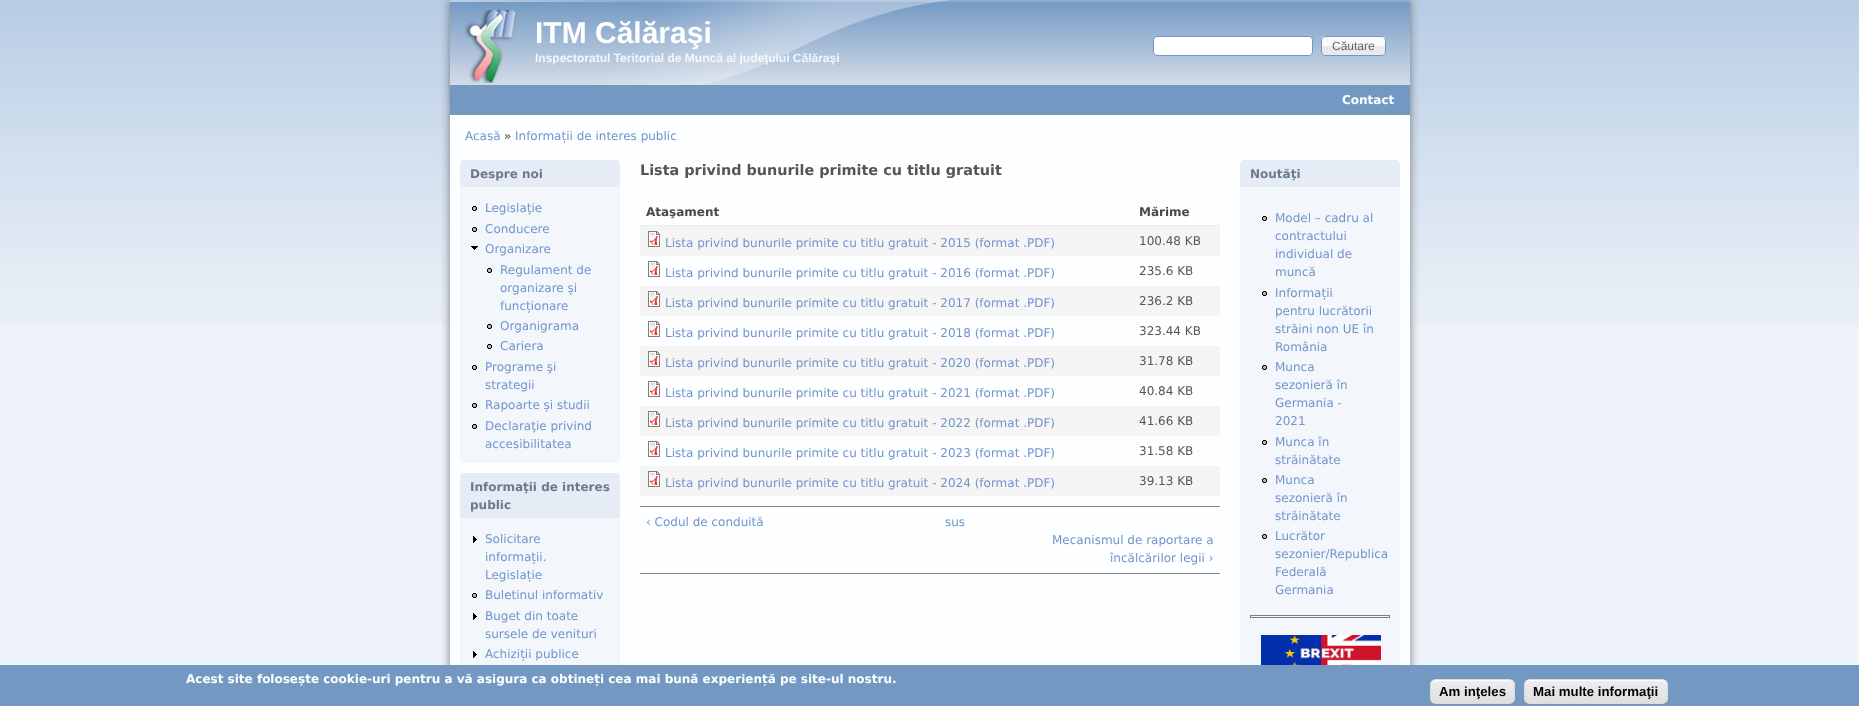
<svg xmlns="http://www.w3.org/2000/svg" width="1859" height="706">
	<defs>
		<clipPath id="clip1"><rect x="1430" y="679" width="85" height="25" rx="6" /></clipPath>
		<linearGradient id="g1" gradientUnits="userSpaceOnUse" x1="1473" y1="680" x2="1473" y2="703"><stop offset="0.05" stop-color="#EDEDED" /><stop offset="1" stop-color="#DFDFDF" /></linearGradient>
		<clipPath id="clip2"><rect x="1524" y="679" width="144" height="25" rx="6" /></clipPath>
		<linearGradient id="g2" gradientUnits="userSpaceOnUse" x1="1596" y1="680" x2="1596" y2="703"><stop offset="0.05" stop-color="#EDEDED" /><stop offset="1" stop-color="#DFDFDF" /></linearGradient>
	</defs>
	<rect width="100%" height="100%" fill="#EEF2F9" />
	<image x="0" y="0" width="1859" height="326" href="assets/img1.png" />
	<rect x="450" y="0" width="960" height="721" fill="#4C4C4C" fill-opacity="0.7" filter="blur(5px)" />
	<rect x="450" y="115" width="960" height="550" fill="#FDFEFF" />
	<image x="950" y="0" width="460" height="85" href="assets/img2.png" />
	<image x="450" y="0" width="500" height="85" href="assets/img3.png" />
	<image x="464" y="10" width="53" height="73" href="assets/img4.png" />
	<text x="535" y="43" font-family="Liberation Sans" font-size="30" font-weight="700" fill="#FEFFFF">ITM Călăraşi</text>
	<text x="535" y="62" font-family="Liberation Sans" font-size="12" font-weight="700" fill="#F3F7FB">Inspectoratul Teritorial de Muncă al judeţului Călăraşi</text>
	<rect x="1153.5" y="36.5" width="159" height="19" rx="3.5" fill="#FFFFFF" stroke="#7294CC" />
	<image x="1321" y="36" width="65" height="20" href="assets/img5.png" />
	<rect x="1321.5" y="36.5" width="64" height="19" rx="3.5" fill="none" stroke="#7294CC" />
	<text x="1332" y="50" font-family="Liberation Sans" font-size="12" fill="#666666">Căutare</text>
	<rect x="450" y="85" width="960" height="30" fill="#7399C3" />
	<text x="1342" y="104" font-family="DejaVu Sans" font-size="12" font-weight="700" fill="#FEFFFF">Contact</text>
	<text x="465" y="140" font-family="DejaVu Sans" font-size="12" fill="#7294CC">Acasă</text>
	<text x="504" y="140" font-family="DejaVu Sans" font-size="12" fill="#555555">»</text>
	<text x="515" y="140" font-family="DejaVu Sans" font-size="12" fill="#7294CC">Informații de interes public</text>
	<rect x="460" y="160" width="160" height="303" rx="4" fill="#F3F7FB" />
	<path d="M464 160H616C618 160 620 162 620 164V187H460V164C460 162 462 160 464 160Z" fill="#E5ECF5" />
	<text x="470" y="178" font-family="DejaVu Sans" font-size="12" font-weight="700" fill="#6C7A8D">Despre noi</text>
	<image x="472" y="206" width="5" height="5" href="assets/img6.png" />
	<text x="485" y="212" font-family="DejaVu Sans" font-size="12" fill="#7294CC">Legislaţie</text>
	<image x="472" y="227" width="5" height="5" href="assets/img6.png" />
	<text x="485" y="233" font-family="DejaVu Sans" font-size="12" fill="#7294CC">Conducere</text>
	<image x="471" y="246" width="7" height="4" href="assets/img7.png" />
	<text x="485" y="253" font-family="DejaVu Sans" font-size="12" fill="#7294CC">Organizare</text>
	<image x="487" y="268" width="5" height="5" href="assets/img6.png" />
	<g font-family="DejaVu Sans" font-size="12" fill="#7294CC">
		<text x="500" y="274">Regulament de</text>
		<text x="500" y="292">organizare și</text>
		<text x="500" y="310">funcționare</text>
	</g>
	<image x="487" y="324" width="5" height="5" href="assets/img6.png" />
	<text x="500" y="330" font-family="DejaVu Sans" font-size="12" fill="#7294CC">Organigrama</text>
	<image x="487" y="344" width="5" height="5" href="assets/img6.png" />
	<text x="500" y="350" font-family="DejaVu Sans" font-size="12" fill="#7294CC">Cariera</text>
	<image x="472" y="365" width="5" height="5" href="assets/img6.png" />
	<g font-family="DejaVu Sans" font-size="12" fill="#7294CC">
		<text x="485" y="371">Programe şi</text>
		<text x="485" y="389">strategii</text>
	</g>
	<image x="472" y="403" width="5" height="5" href="assets/img6.png" />
	<text x="485" y="409" font-family="DejaVu Sans" font-size="12" fill="#7294CC">Rapoarte și studii</text>
	<image x="472" y="424" width="5" height="5" href="assets/img6.png" />
	<g font-family="DejaVu Sans" font-size="12" fill="#7294CC">
		<text x="485" y="430">Declaraţie privind</text>
		<text x="485" y="448">accesibilitatea</text>
	</g>
	<rect x="460" y="473" width="160" height="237" rx="4" fill="#F3F7FB" />
	<path d="M464 473H616C618 473 620 475 620 477V518H460V477C460 475 462 473 464 473Z" fill="#E5ECF5" />
	<g font-family="DejaVu Sans" font-size="12" font-weight="700" fill="#6C7A8D">
		<text x="470" y="491">Informaţii de interes</text>
		<text x="470" y="509">public</text>
	</g>
	<image x="473" y="536" width="4" height="7" href="assets/img8.png" />
	<g font-family="DejaVu Sans" font-size="12" fill="#7294CC">
		<text x="485" y="543">Solicitare</text>
		<text x="485" y="561">informații.</text>
		<text x="485" y="579">Legislație</text>
	</g>
	<image x="472" y="593" width="5" height="5" href="assets/img6.png" />
	<text x="485" y="599" font-family="DejaVu Sans" font-size="12" fill="#7294CC">Buletinul informativ</text>
	<image x="473" y="613" width="4" height="7" href="assets/img8.png" />
	<g font-family="DejaVu Sans" font-size="12" fill="#7294CC">
		<text x="485" y="620">Buget din toate</text>
		<text x="485" y="638">sursele de venituri</text>
	</g>
	<image x="473" y="651" width="4" height="7" href="assets/img8.png" />
	<text x="485" y="658" font-family="DejaVu Sans" font-size="12" fill="#7294CC">Achiziții publice</text>
	<text x="640" y="175" font-family="DejaVu Sans" font-size="14.4" font-weight="700" fill="#555555">Lista privind bunurile primite cu titlu gratuit</text>
	<text x="646" y="216" font-family="DejaVu Sans" font-size="12" font-weight="700" fill="#494949">Ataşament</text>
	<rect x="639" y="225" width="581" height="1" fill="#EEEEEE" />
	<text x="1139" y="216" font-family="DejaVu Sans" font-size="12" font-weight="700" fill="#494949">Mărime</text>
	<rect x="640" y="226" width="580" height="30" fill="#F5F5F5" />
	<image x="648" y="231" width="12" height="16" href="assets/img9.png" />
	<text x="665" y="247" font-family="DejaVu Sans" font-size="12" fill="#7294CC">Lista privind bunurile primite cu titlu gratuit - 2015 (format .PDF)</text>
	<text x="1139" y="245" font-family="DejaVu Sans" font-size="12" fill="#555555">100.48 KB</text>
	<image x="648" y="261" width="12" height="16" href="assets/img10.png" />
	<text x="665" y="277" font-family="DejaVu Sans" font-size="12" fill="#7294CC">Lista privind bunurile primite cu titlu gratuit - 2016 (format .PDF)</text>
	<text x="1139" y="275" font-family="DejaVu Sans" font-size="12" fill="#555555">235.6 KB</text>
	<rect x="640" y="286" width="580" height="30" fill="#F5F5F5" />
	<image x="648" y="291" width="12" height="16" href="assets/img9.png" />
	<text x="665" y="307" font-family="DejaVu Sans" font-size="12" fill="#7294CC">Lista privind bunurile primite cu titlu gratuit - 2017 (format .PDF)</text>
	<text x="1139" y="305" font-family="DejaVu Sans" font-size="12" fill="#555555">236.2 KB</text>
	<image x="648" y="321" width="12" height="16" href="assets/img10.png" />
	<text x="665" y="337" font-family="DejaVu Sans" font-size="12" fill="#7294CC">Lista privind bunurile primite cu titlu gratuit - 2018 (format .PDF)</text>
	<text x="1139" y="335" font-family="DejaVu Sans" font-size="12" fill="#555555">323.44 KB</text>
	<rect x="640" y="346" width="580" height="30" fill="#F5F5F5" />
	<image x="648" y="351" width="12" height="16" href="assets/img9.png" />
	<text x="665" y="367" font-family="DejaVu Sans" font-size="12" fill="#7294CC">Lista privind bunurile primite cu titlu gratuit - 2020 (format .PDF)</text>
	<text x="1139" y="365" font-family="DejaVu Sans" font-size="12" fill="#555555">31.78 KB</text>
	<image x="648" y="381" width="12" height="16" href="assets/img10.png" />
	<text x="665" y="397" font-family="DejaVu Sans" font-size="12" fill="#7294CC">Lista privind bunurile primite cu titlu gratuit - 2021 (format .PDF)</text>
	<text x="1139" y="395" font-family="DejaVu Sans" font-size="12" fill="#555555">40.84 KB</text>
	<rect x="640" y="406" width="580" height="30" fill="#F5F5F5" />
	<image x="648" y="411" width="12" height="16" href="assets/img9.png" />
	<text x="665" y="427" font-family="DejaVu Sans" font-size="12" fill="#7294CC">Lista privind bunurile primite cu titlu gratuit - 2022 (format .PDF)</text>
	<text x="1139" y="425" font-family="DejaVu Sans" font-size="12" fill="#555555">41.66 KB</text>
	<image x="648" y="441" width="12" height="16" href="assets/img10.png" />
	<text x="665" y="457" font-family="DejaVu Sans" font-size="12" fill="#7294CC">Lista privind bunurile primite cu titlu gratuit - 2023 (format .PDF)</text>
	<text x="1139" y="455" font-family="DejaVu Sans" font-size="12" fill="#555555">31.58 KB</text>
	<rect x="640" y="466" width="580" height="30" fill="#F5F5F5" />
	<image x="648" y="471" width="12" height="16" href="assets/img9.png" />
	<text x="665" y="487" font-family="DejaVu Sans" font-size="12" fill="#7294CC">Lista privind bunurile primite cu titlu gratuit - 2024 (format .PDF)</text>
	<text x="1139" y="485" font-family="DejaVu Sans" font-size="12" fill="#555555">39.13 KB</text>
	<rect x="640" y="506" width="580" height="1" fill="#888888" />
	<rect x="640" y="573" width="580" height="1" fill="#888888" />
	<g font-family="DejaVu Sans" font-size="12" fill="#7294CC">
		<text x="646" y="526">‹ Codul de conduită</text>
		<text x="945" y="526">sus</text>
		<text x="1052" y="544">Mecanismul de raportare a</text>
		<text x="1110" y="562">încălcărilor legii ›</text>
	</g>
	<rect x="1240" y="160" width="160" height="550" rx="4" fill="#F3F7FB" />
	<path d="M1244 160H1396C1398 160 1400 162 1400 164V187H1240V164C1240 162 1242 160 1244 160Z" fill="#E5ECF5" />
	<text x="1250" y="178" font-family="DejaVu Sans" font-size="12" font-weight="700" fill="#6C7A8D">Noutăţi</text>
	<image x="1262" y="216" width="5" height="5" href="assets/img6.png" />
	<g font-family="DejaVu Sans" font-size="12" fill="#7294CC">
		<text x="1275" y="222">Model – cadru al</text>
		<text x="1275" y="240">contractului</text>
		<text x="1275" y="258">individual de</text>
		<text x="1275" y="276">muncă</text>
	</g>
	<image x="1262" y="291" width="5" height="5" href="assets/img6.png" />
	<g font-family="DejaVu Sans" font-size="12" fill="#7294CC">
		<text x="1275" y="297">Informații</text>
		<text x="1275" y="315">pentru lucrătorii</text>
		<text x="1275" y="333">străini non UE în</text>
		<text x="1275" y="351">România</text>
	</g>
	<image x="1262" y="365" width="5" height="5" href="assets/img6.png" />
	<g font-family="DejaVu Sans" font-size="12" fill="#7294CC">
		<text x="1275" y="371">Munca</text>
		<text x="1275" y="389">sezonieră în</text>
		<text x="1275" y="407">Germania -</text>
		<text x="1275" y="425">2021</text>
	</g>
	<image x="1262" y="440" width="5" height="5" href="assets/img6.png" />
	<g font-family="DejaVu Sans" font-size="12" fill="#7294CC">
		<text x="1275" y="446">Munca în</text>
		<text x="1275" y="464">străinătate</text>
	</g>
	<image x="1262" y="478" width="5" height="5" href="assets/img6.png" />
	<g font-family="DejaVu Sans" font-size="12" fill="#7294CC">
		<text x="1275" y="484">Munca</text>
		<text x="1275" y="502">sezonieră în</text>
		<text x="1275" y="520">străinătate</text>
	</g>
	<image x="1262" y="534" width="5" height="5" href="assets/img6.png" />
	<g font-family="DejaVu Sans" font-size="12" fill="#7294CC">
		<text x="1275" y="540">Lucrător</text>
		<text x="1275" y="558">sezonier/Republica</text>
		<text x="1275" y="576">Federală</text>
		<text x="1275" y="594">Germania</text>
	</g>
	<rect x="1250.5" y="615.5" width="139" height="2" fill="none" stroke="#808080" />
	<image x="1261" y="635" width="120" height="30" href="assets/img11.png" />
	<rect x="0" y="665" width="1859" height="41" fill="#7399C3" />
	<text x="186" y="683" font-family="DejaVu Sans" font-size="12" font-weight="700" fill="#FEFFFF">Acest site folosește cookie-uri pentru a vă asigura ca obtineți cea mai bună experiență pe site-ul nostru.</text>
	<g clip-path="url(#clip1)">
		<rect x="1430" y="680" width="85" height="23" fill="url(#g1)" />
	</g>
	<path d="M1436 681H1509C1512 681 1514 683 1514 686C1514 677 1503 680 1497 680H1448C1442 680 1431 677 1431 686C1431 683 1433 681 1436 681Z" fill="#FFFFFF" />
	<rect x="1430.5" y="679.5" width="84" height="24" rx="5.5" fill="none" stroke="#DCDCDC" />
	<text x="1439" y="696" font-family="Liberation Sans" font-size="13.25" font-weight="700" fill="#000000">Am inţeles</text>
	<g clip-path="url(#clip2)">
		<rect x="1524" y="680" width="144" height="23" fill="url(#g2)" />
	</g>
	<path d="M1530 681H1662C1665 681 1667 683 1667 686V685C1667 682 1665 680 1662 680H1530C1527 680 1525 682 1525 685V686C1525 683 1527 681 1530 681Z" fill="#FFFFFF" />
	<rect x="1524.5" y="679.5" width="143" height="24" rx="5.5" fill="none" stroke="#DCDCDC" />
	<text x="1533" y="696" font-family="Liberation Sans" font-size="13.25" font-weight="700" fill="#000000">Mai multe informaţii</text>
</svg>
